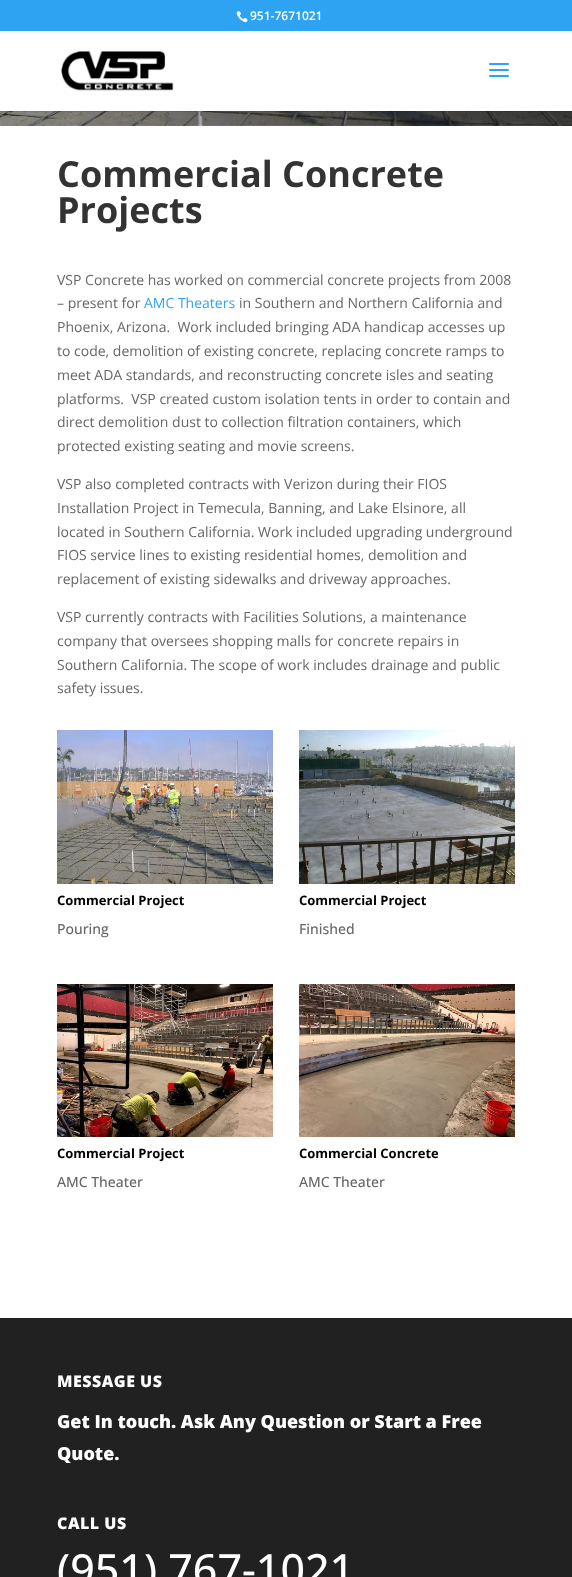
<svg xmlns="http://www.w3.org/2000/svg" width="572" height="1577">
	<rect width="100%" height="100%" fill="#FFFFFF" />
	<rect x="0" y="0" width="572" height="31" fill="#2EA3F2" />
	<image x="236" y="11" width="12" height="12" href="assets/img1.png" />
	<text x="250" y="20" font-family="Open Sans" font-size="12" font-weight="600" fill="#FFFFFF">951-7671021</text>
	<image x="0" y="111" width="572" height="15" href="assets/img4.png" />
	<rect x="0" y="111" width="572" height="1" fill="#000000" fill-opacity="0.1" />
	<image x="61" y="50" width="113" height="41" href="assets/img2.png" />
	<image x="489" y="63" width="20" height="14" href="assets/img3.png" />
	<g font-family="Open Sans" font-size="36" font-weight="700" fill="#333333">
		<text x="57" y="187">Commercial Concrete</text>
		<text x="57" y="223">Projects</text>
	</g>
	<g font-family="Open Sans" font-size="14" fill="#666666">
		<text x="57" y="285">VSP Concrete has worked on commercial concrete projects from 2008</text>
		<text x="57" y="308">– present for</text>
	</g>
	<text x="144" y="308" font-family="Open Sans" font-size="14" fill="#2EA3F2">AMC Theaters</text>
	<g font-family="Open Sans" font-size="14" fill="#666666">
		<text x="239" y="308">in Southern and Northern California and</text>
		<text x="57" y="332" xml:space="preserve">Phoenix, Arizona.  Work included bringing ADA handicap accesses up</text>
		<text x="57" y="356">to code, demolition of existing concrete, replacing concrete ramps to</text>
		<text x="57" y="380">meet ADA standards, and reconstructing concrete isles and seating</text>
		<text x="57" y="404" xml:space="preserve">platforms.  VSP created custom isolation tents in order to contain and</text>
		<text x="57" y="427">direct demolition dust to collection filtration containers, which</text>
		<text x="57" y="451">protected existing seating and movie screens.</text>
		<text x="57" y="489">VSP also completed contracts with Verizon during their FIOS</text>
		<text x="57" y="513">Installation Project in Temecula, Banning, and Lake Elsinore, all</text>
		<text x="57" y="537">located in Southern California. Work included upgrading underground</text>
		<text x="57" y="560">FIOS service lines to existing residential homes, demolition and</text>
		<text x="57" y="584">replacement of existing sidewalks and driveway approaches.</text>
		<text x="57" y="622">VSP currently contracts with Facilities Solutions, a maintenance</text>
		<text x="57" y="646">company that oversees shopping malls for concrete repairs in</text>
		<text x="57" y="670">Southern California. The scope of work includes drainage and public</text>
		<text x="57" y="693">safety issues.</text>
	</g>
	<image x="57" y="730" width="216" height="154" href="assets/img5.png" />
	<text x="57" y="905" font-family="Open Sans" font-size="13" font-weight="700" fill="#000000">Commercial Project</text>
	<text x="57" y="934" font-family="Open Sans" font-size="14" font-weight="500" fill="#666666">Pouring</text>
	<image x="299" y="730" width="216" height="154" href="assets/img6.png" />
	<text x="299" y="905" font-family="Open Sans" font-size="13" font-weight="700" fill="#000000">Commercial Project</text>
	<text x="299" y="934" font-family="Open Sans" font-size="14" font-weight="500" fill="#666666">Finished</text>
	<image x="57" y="984" width="216" height="153" href="assets/img7.png" />
	<text x="57" y="1158" font-family="Open Sans" font-size="13" font-weight="700" fill="#000000">Commercial Project</text>
	<text x="57" y="1187" font-family="Open Sans" font-size="14" font-weight="500" fill="#666666">AMC Theater</text>
	<image x="299" y="984" width="216" height="153" href="assets/img8.png" />
	<text x="299" y="1158" font-family="Open Sans" font-size="13" font-weight="700" fill="#000000">Commercial Concrete</text>
	<text x="299" y="1187" font-family="Open Sans" font-size="14" font-weight="500" fill="#666666">AMC Theater</text>
	<rect x="0" y="1318" width="572" height="259" fill="#212121" />
	<text x="57" y="1387" font-family="Open Sans" font-size="16" font-weight="800" letter-spacing="0.5" fill="#FFFFFF">MESSAGE US</text>
	<g font-family="Open Sans" font-size="18" font-weight="800" fill="#FFFFFF">
		<text x="57" y="1428">Get In touch. Ask Any Question or Start a Free</text>
		<text x="57" y="1460">Quote.</text>
	</g>
	<text x="57" y="1529" font-family="Open Sans" font-size="16" font-weight="800" letter-spacing="0.5" fill="#FFFFFF">CALL US</text>
	<text x="57" y="1585" font-family="Open Sans" font-size="43" font-weight="500" fill="#FFFFFF">(951) 767-1021</text>
</svg>
